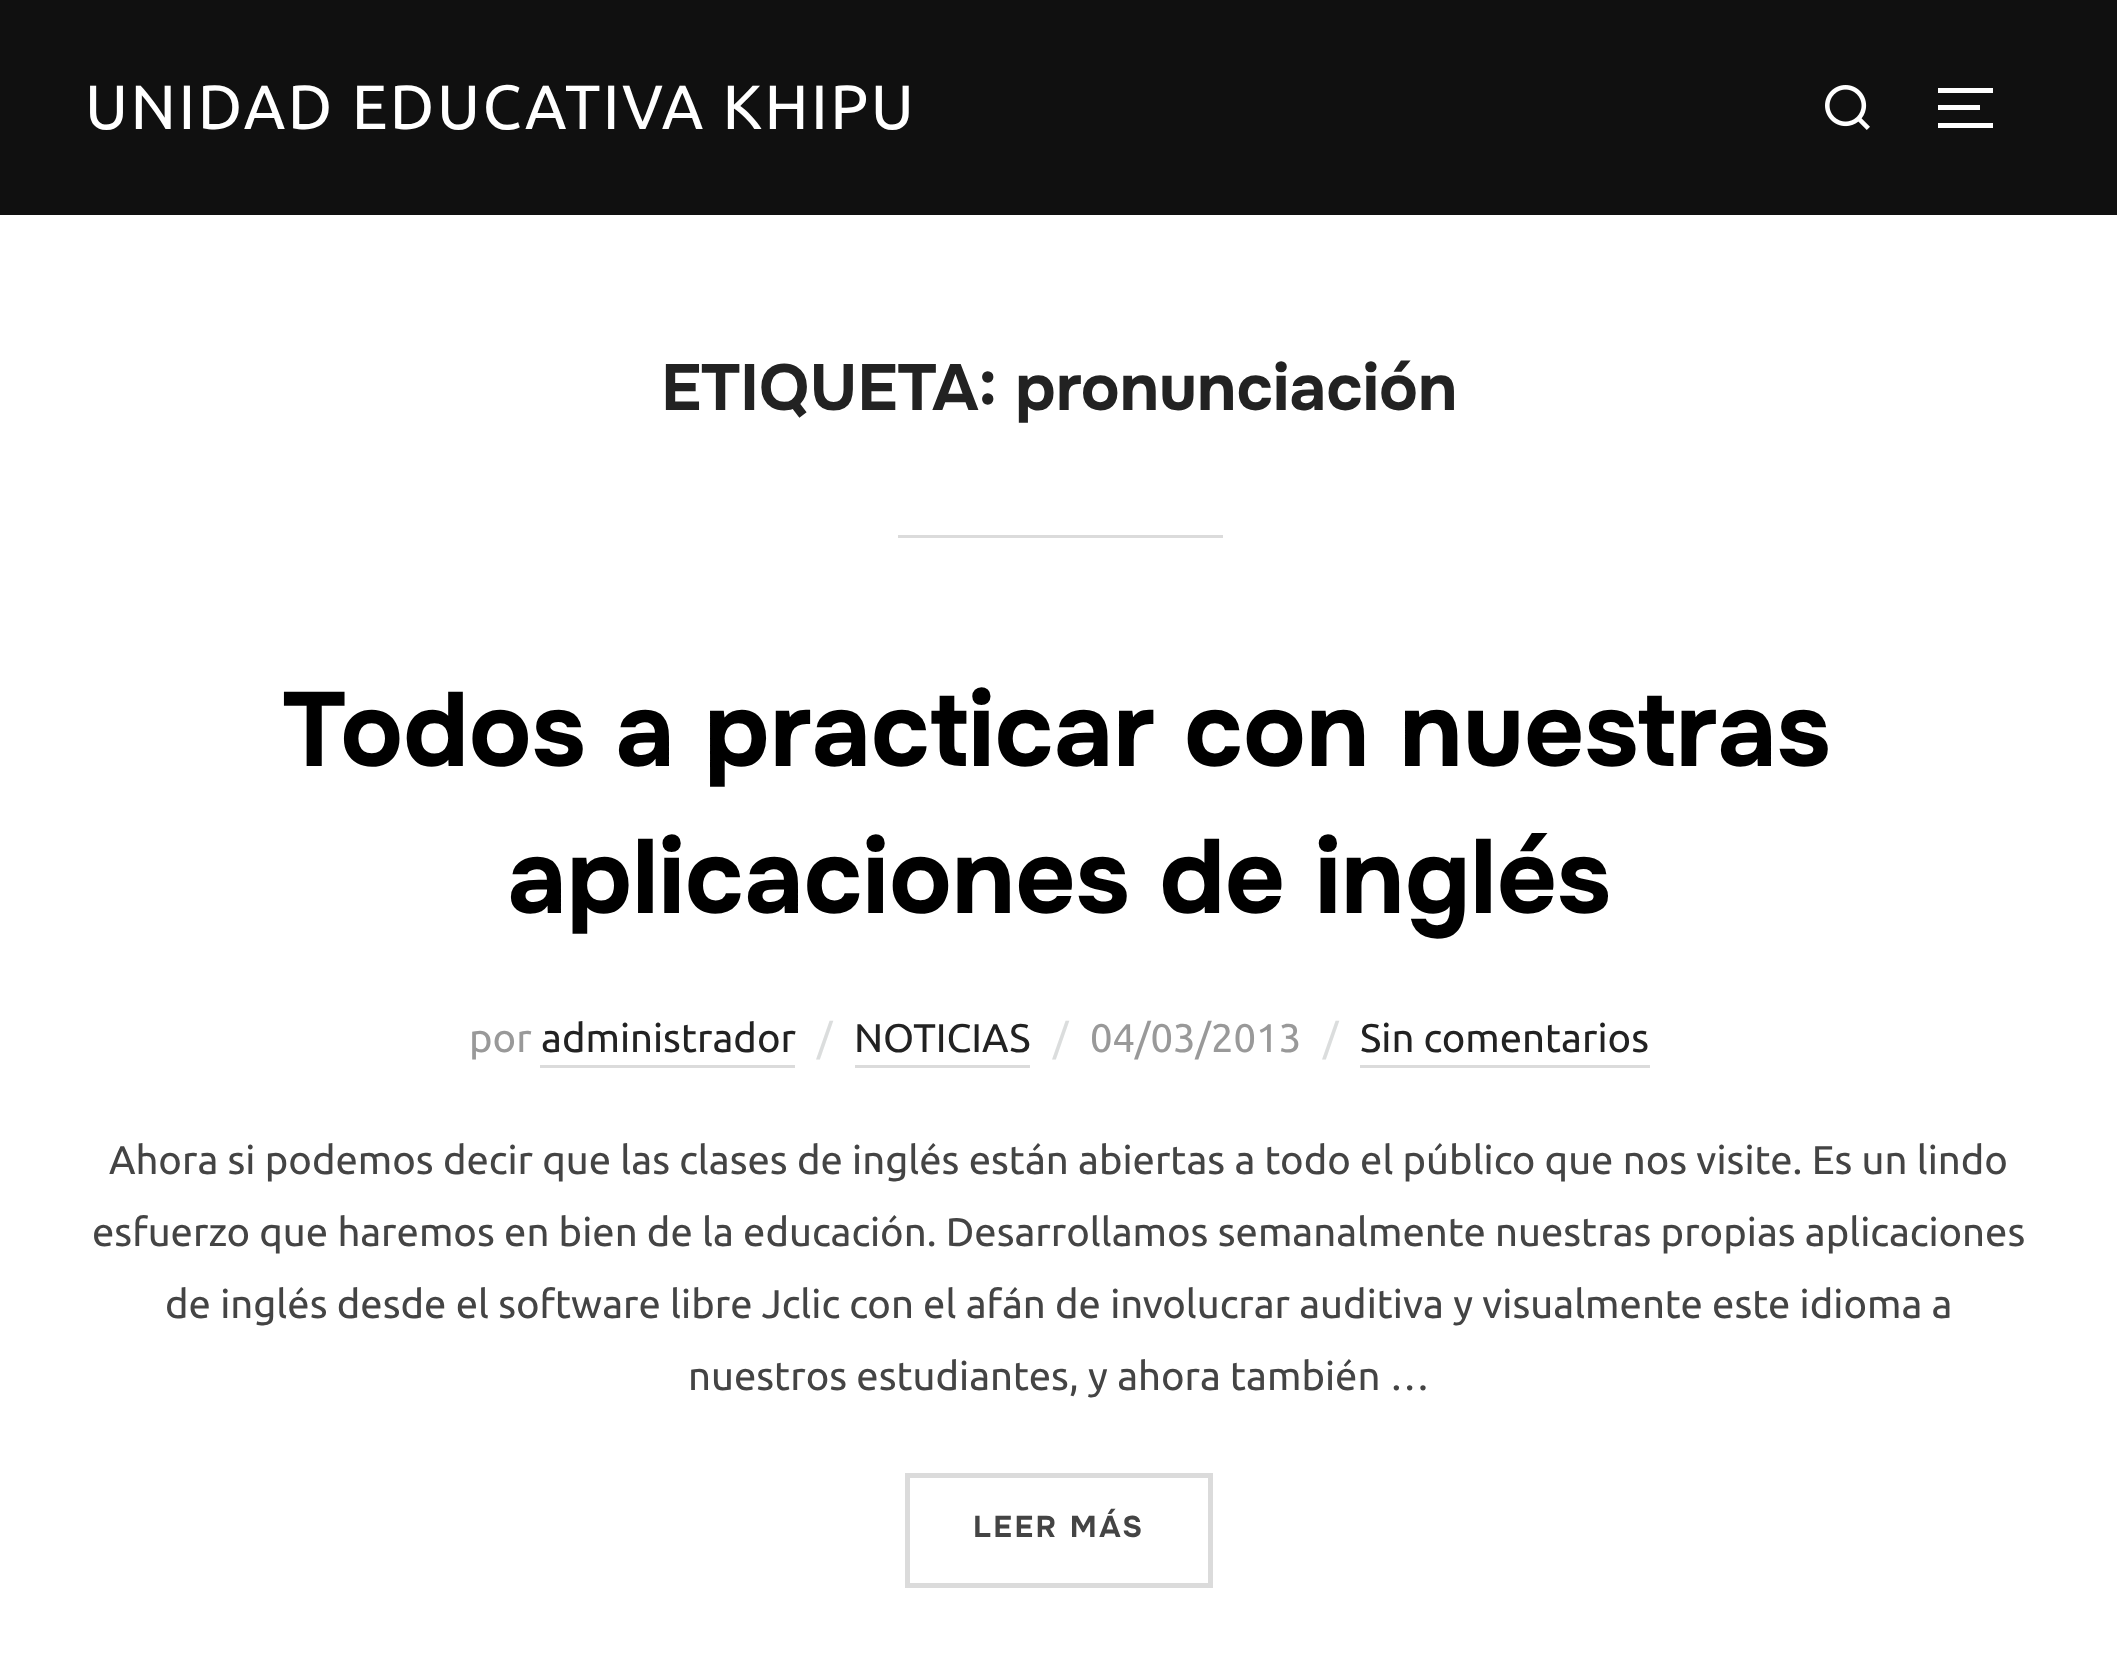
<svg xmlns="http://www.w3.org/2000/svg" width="2117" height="1674">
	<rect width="100%" height="100%" fill="#FFFFFF" />
	<rect x="0" y="0" width="2117" height="215" fill="#101010" />
	<text x="85" y="129" font-family="Ubuntu" font-size="62.5" letter-spacing="2.5" fill="#FFFFFF">UNIDAD EDUCATIVA KHIPU</text>
	<image x="1825" y="85" width="45" height="45" href="assets/img1.png" />
	<rect x="1938" y="88" width="55" height="5" fill="#FFFFFF" />
	<rect x="1938" y="105" width="42" height="5" fill="#FFFFFF" />
	<rect x="1938" y="123" width="55" height="5" fill="#FFFFFF" />
	<text x="661" y="410" font-family="Onest" font-size="65" font-weight="700" fill="#222222">ETIQUETA: pronunciación</text>
	<rect x="898" y="535" width="325" height="3" fill="#DBDBDB" />
	<g font-family="Onest" font-size="105" font-weight="700" fill="#000000">
		<text x="283" y="766">Todos a practicar con nuestras</text>
		<text x="507" y="913">aplicaciones de inglés</text>
	</g>
	<text x="469" y="1052" font-family="Ubuntu" font-size="40" fill="#999999">por</text>
	<rect x="540" y="1065" width="255" height="3" fill="#DBDBDB" />
	<text x="541" y="1052" font-family="Ubuntu" font-size="40" fill="#222222">administrador</text>
	<text x="817" y="1052" font-family="Ubuntu" font-size="40" fill="#DBDDDD">/</text>
	<text x="854" y="1052" font-family="Ubuntu" font-size="40" fill="#222222">NOTICIAS</text>
	<rect x="855" y="1065" width="175" height="3" fill="#DBDBDB" />
	<text x="1053" y="1052" font-family="Ubuntu" font-size="40" fill="#DBDDDD">/</text>
	<text x="1090" y="1052" font-family="Ubuntu" font-size="40" fill="#999999">04/03/2013</text>
	<text x="1323" y="1052" font-family="Ubuntu" font-size="40" fill="#DBDDDD">/</text>
	<text x="1360" y="1052" font-family="Ubuntu" font-size="40" fill="#222222">Sin comentarios</text>
	<rect x="1360" y="1065" width="290" height="3" fill="#DBDBDB" />
	<g font-family="Ubuntu" font-size="40" fill="#444444">
		<text x="109" y="1174">Ahora si podemos decir que las clases de inglés están abiertas a todo el público que nos visite. Es un lindo</text>
		<text x="92" y="1246">esfuerzo que haremos en bien de la educación. Desarrollamos semanalmente nuestras propias aplicaciones</text>
		<text x="165" y="1318">de inglés desde el software libre Jclic con el afán de involucrar auditiva y visualmente este idioma a</text>
		<text x="688" y="1390">nuestros estudiantes, y ahora también …</text>
	</g>
	<rect x="907.5" y="1475.5" width="303" height="110" fill="none" stroke="#DBDBDB" stroke-width="5" />
	<text x="973" y="1537" font-family="Onest" font-size="30" font-weight="700" letter-spacing="2.5" fill="#444444">LEER MÁS</text>
</svg>
